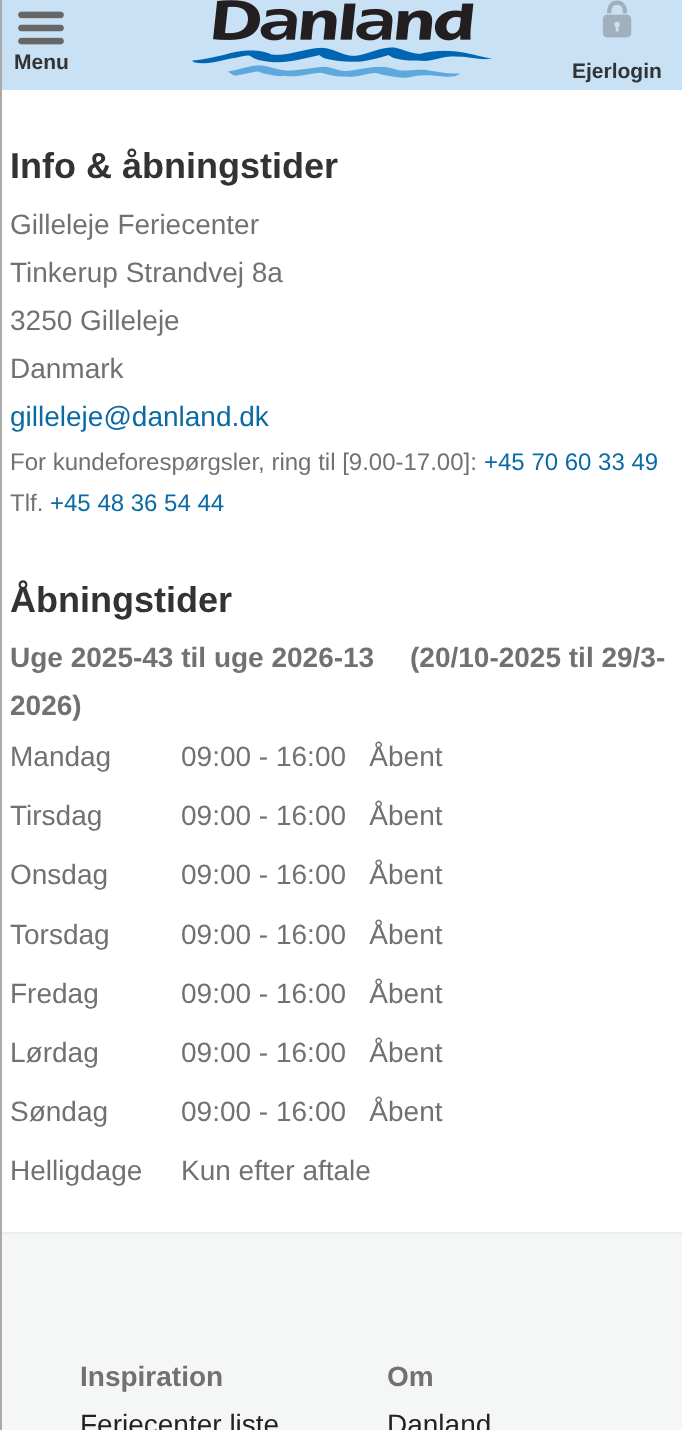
<svg xmlns="http://www.w3.org/2000/svg" width="682" height="1430">
	<rect width="100%" height="100%" fill="#FFFFFF" />
	<rect x="0" y="1232" width="682" height="2" fill="#EBEDEF" />
	<rect x="0" y="0" width="2" height="1430" fill="#AAAAAA" />
	<rect x="2" y="0" width="680" height="90" fill="#C8E1F5" />
	<image x="18" y="11" width="46" height="34" href="assets/img1.png" />
	<text x="14" y="69" font-family="Liberation Sans" font-size="21" font-weight="700" fill="#333333">Menu</text>
	<image x="192" y="0" width="300" height="78" href="assets/img2.png" />
	<image x="602" y="0" width="30" height="38" href="assets/img3.png" />
	<text x="572" y="78" font-family="Liberation Sans" font-size="21" font-weight="700" fill="#333333">Ejerlogin</text>
	<text x="10" y="178" font-family="Liberation Sans" font-size="36" font-weight="700" fill="#333333">Info &amp; åbningstider</text>
	<g font-family="Liberation Sans" font-size="28" fill="#717171">
		<text x="10" y="234">Gilleleje Feriecenter</text>
		<text x="10" y="282">Tinkerup Strandvej 8a</text>
		<text x="10" y="330">3250 Gilleleje</text>
		<text x="10" y="378">Danmark</text>
	</g>
	<text x="10" y="426" font-family="Liberation Sans" font-size="28" fill="#0A6BA4">gilleleje@danland.dk</text>
	<text x="10" y="470" font-family="Liberation Sans" font-size="24" fill="#717171">For kundeforespørgsler, ring til [9.00-17.00]:</text>
	<text x="484" y="470" font-family="Liberation Sans" font-size="24" fill="#0A6BA4">+45 70 60 33 49</text>
	<text x="10" y="511" font-family="Liberation Sans" font-size="24" fill="#717171">Tlf.</text>
	<text x="50" y="511" font-family="Liberation Sans" font-size="24" fill="#0A6BA4">+45 48 36 54 44</text>
	<text x="10" y="612" font-family="Liberation Sans" font-size="36" font-weight="700" fill="#333333">Åbningstider</text>
	<g font-family="Liberation Sans" font-size="28" font-weight="700" fill="#717171">
		<text x="10" y="667">Uge 2025-43 til uge 2026-13</text>
		<text x="410" y="667">(20/10-2025 til 29/3-</text>
		<text x="10" y="715">2026)</text>
	</g>
	<g font-family="Liberation Sans" font-size="28" fill="#717171">
		<text x="10" y="766">Mandag</text>
		<text x="181" y="766" xml:space="preserve">09:00 - 16:00   Åbent</text>
		<text x="10" y="825">Tirsdag</text>
		<text x="181" y="825" xml:space="preserve">09:00 - 16:00   Åbent</text>
		<text x="10" y="884">Onsdag</text>
		<text x="181" y="884" xml:space="preserve">09:00 - 16:00   Åbent</text>
		<text x="10" y="944">Torsdag</text>
		<text x="181" y="944" xml:space="preserve">09:00 - 16:00   Åbent</text>
		<text x="10" y="1003">Fredag</text>
		<text x="181" y="1003" xml:space="preserve">09:00 - 16:00   Åbent</text>
		<text x="10" y="1062">Lørdag</text>
		<text x="181" y="1062" xml:space="preserve">09:00 - 16:00   Åbent</text>
		<text x="10" y="1121">Søndag</text>
		<text x="181" y="1121" xml:space="preserve">09:00 - 16:00   Åbent</text>
		<text x="10" y="1180">Helligdage</text>
		<text x="181" y="1180">Kun efter aftale</text>
	</g>
	<rect x="2" y="1234" width="680" height="196" fill="#F5F6F6" />
	<text x="80" y="1386" font-family="Liberation Sans" font-size="28" font-weight="700" fill="#717171">Inspiration</text>
	<text x="80" y="1434" font-family="Liberation Sans" font-size="28" fill="#222222">Feriecenter liste</text>
	<text x="387" y="1386" font-family="Liberation Sans" font-size="28" font-weight="700" fill="#717171">Om</text>
	<text x="387" y="1434" font-family="Liberation Sans" font-size="28" fill="#222222">Danland</text>
</svg>
